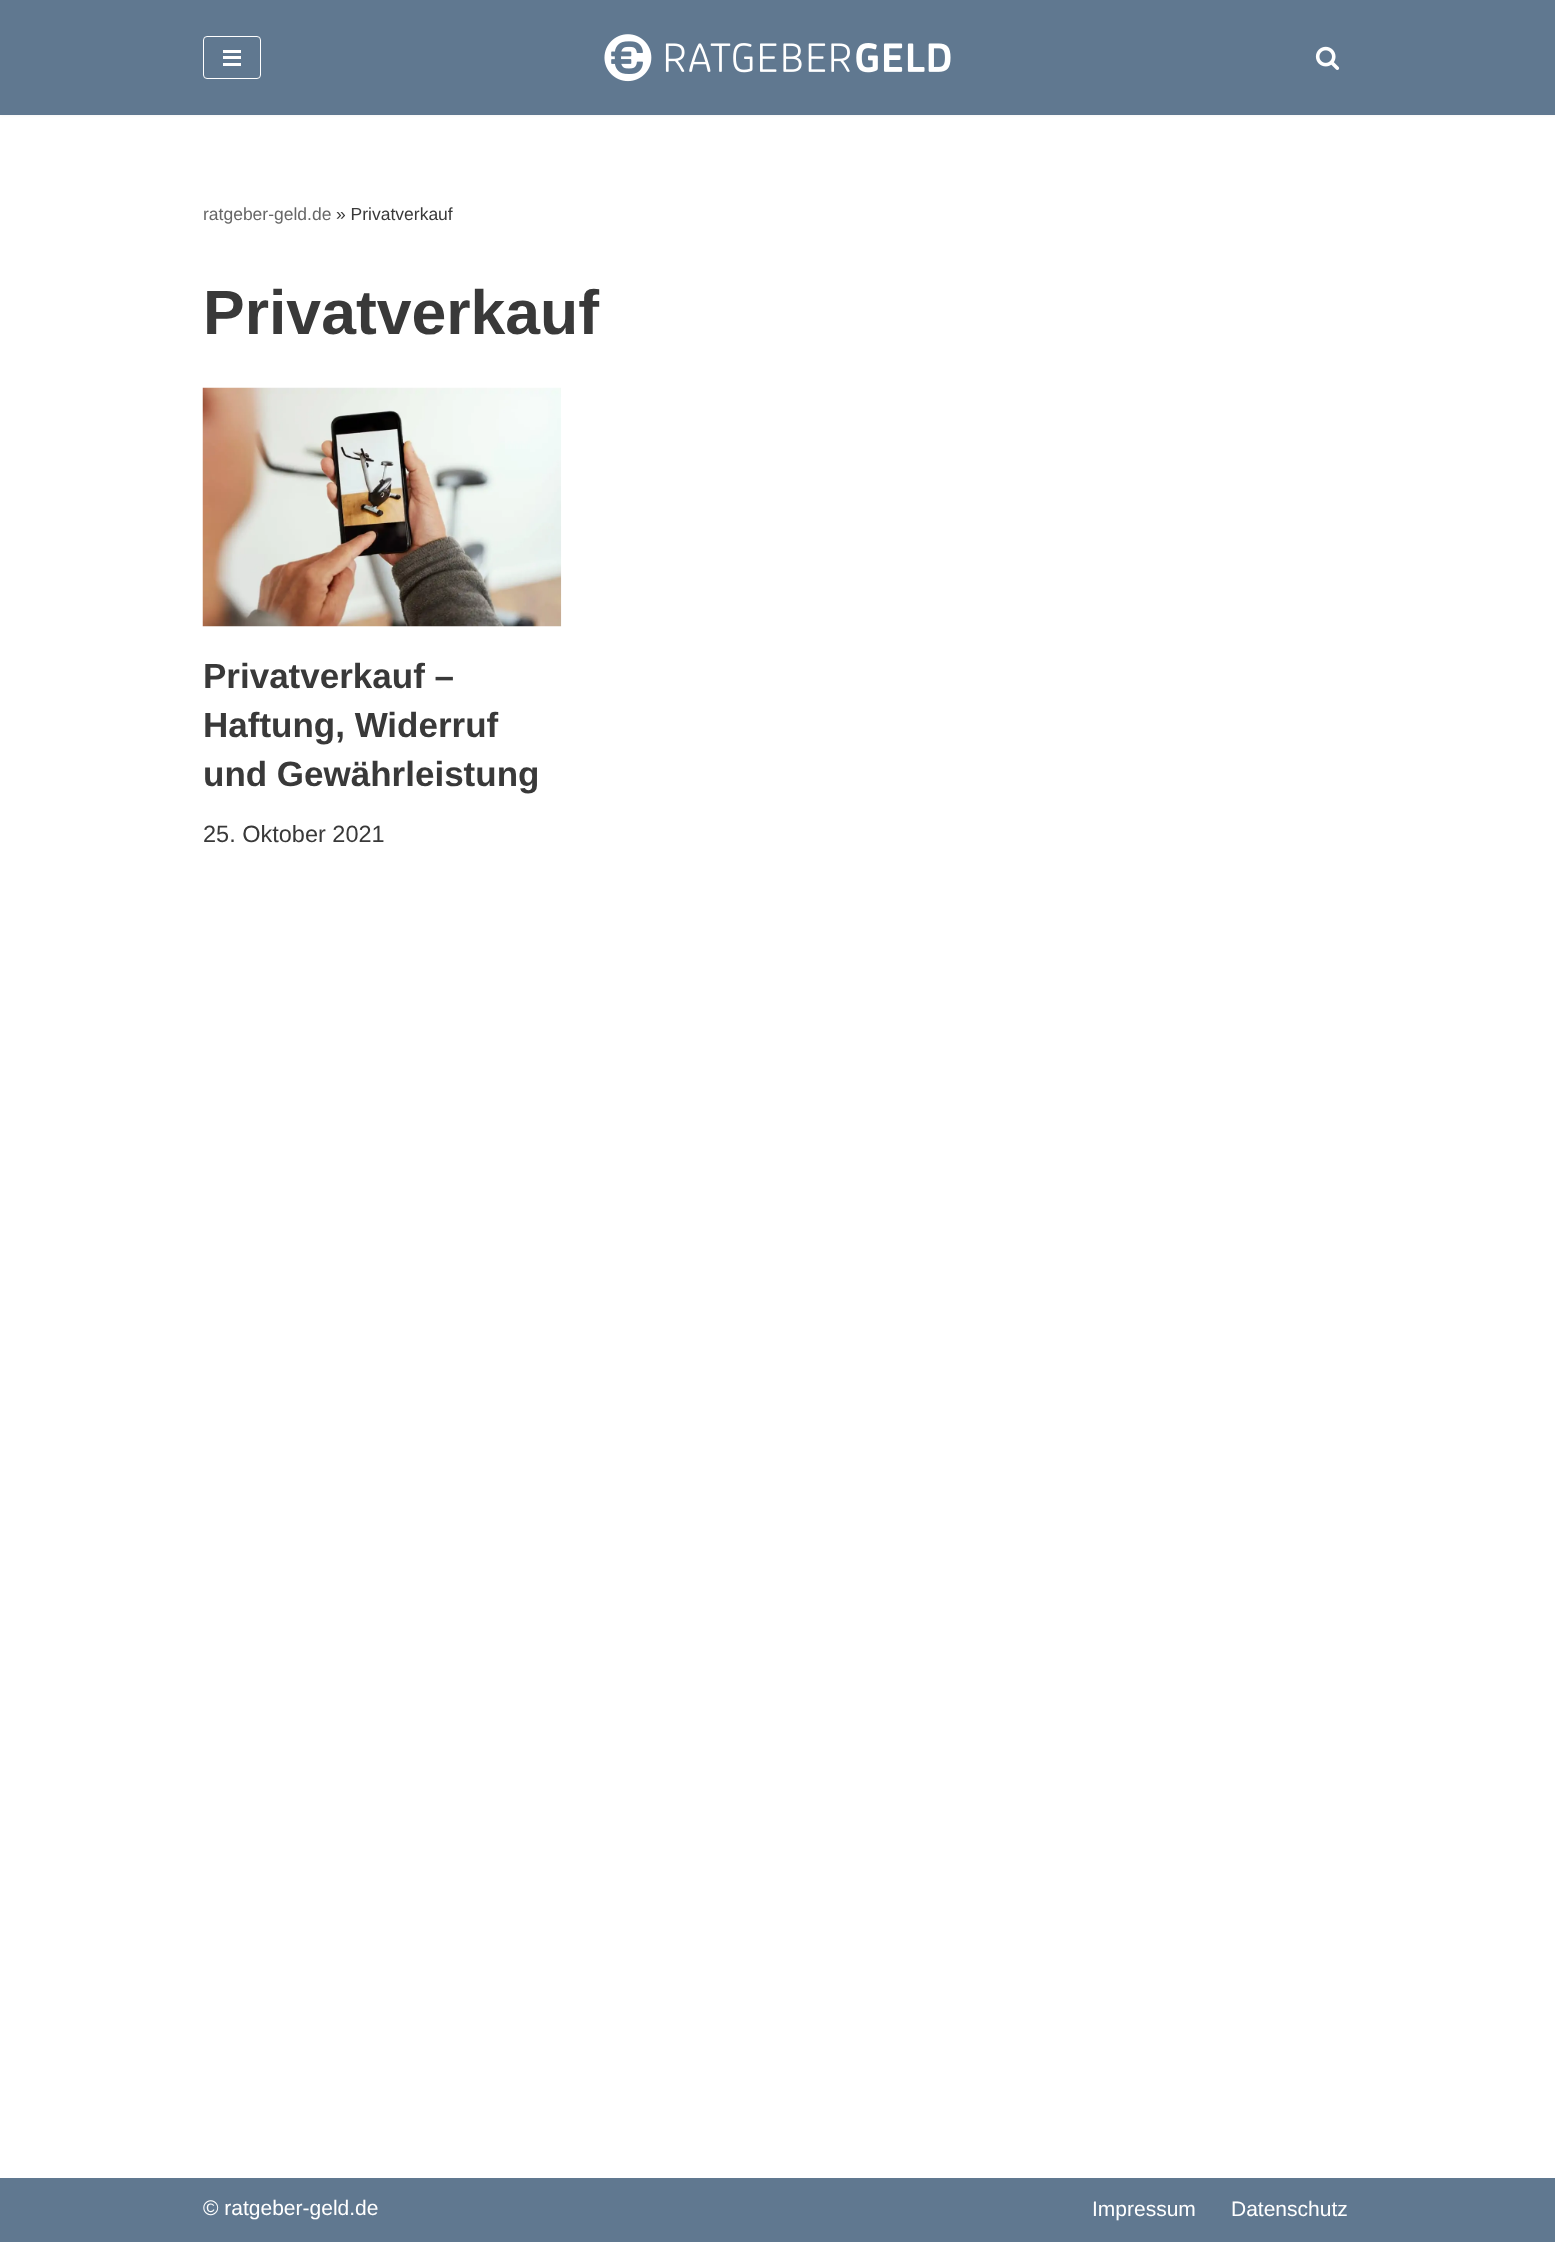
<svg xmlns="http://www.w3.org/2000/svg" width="1555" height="2242">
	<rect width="100%" height="100%" fill="#FFFFFF" />
	<rect x="0" y="-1" width="1555" height="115" fill="#000000" fill-opacity="0.1" filter="blur(2px)" />
	<rect x="0" y="0" width="1555" height="115" fill="#607890" />
	<rect x="203.5" y="36.5" width="57" height="42" rx="3.5" fill="none" stroke="#FFFFFF" />
	<rect x="223" y="50" width="18" height="3" fill="#FFFFFF" />
	<rect x="223" y="56" width="18" height="3" fill="#FFFFFF" />
	<rect x="223" y="63" width="18" height="3" fill="#FFFFFF" />
	<image x="604" y="34" width="347" height="48" href="assets/img1.png" />
	<image x="1315" y="46" width="25" height="24" href="assets/img2.png" />
	<text x="203" y="220" font-family="Liberation Sans" font-size="17.5" fill="#676767">ratgeber-geld.de</text>
	<text x="336" y="220" font-family="Liberation Sans" font-size="17.5" fill="#393939">» Privatverkauf</text>
	<text x="203" y="334" font-family="Liberation Sans" font-size="62.5" font-weight="700" fill="#393939">Privatverkauf</text>
	<image x="202" y="387" width="360" height="240" href="assets/img3.png" />
	<g font-family="Liberation Sans" font-size="35" font-weight="700" fill="#393939">
		<text x="203" y="688">Privatverkauf –</text>
		<text x="203" y="737">Haftung, Widerruf</text>
		<text x="203" y="786">und Gewährleistung</text>
	</g>
	<text x="203" y="842" font-family="Liberation Sans" font-size="23.5" fill="#393939">25. Oktober 2021</text>
	<rect x="0" y="2178" width="1555" height="64" fill="#607890" />
	<g font-family="Liberation Sans" font-size="21" fill="#FFFFFF">
		<text x="203" y="2215">© ratgeber-geld.de</text>
		<text x="1092" y="2216">Impressum</text>
		<text x="1231" y="2216">Datenschutz</text>
	</g>
</svg>
